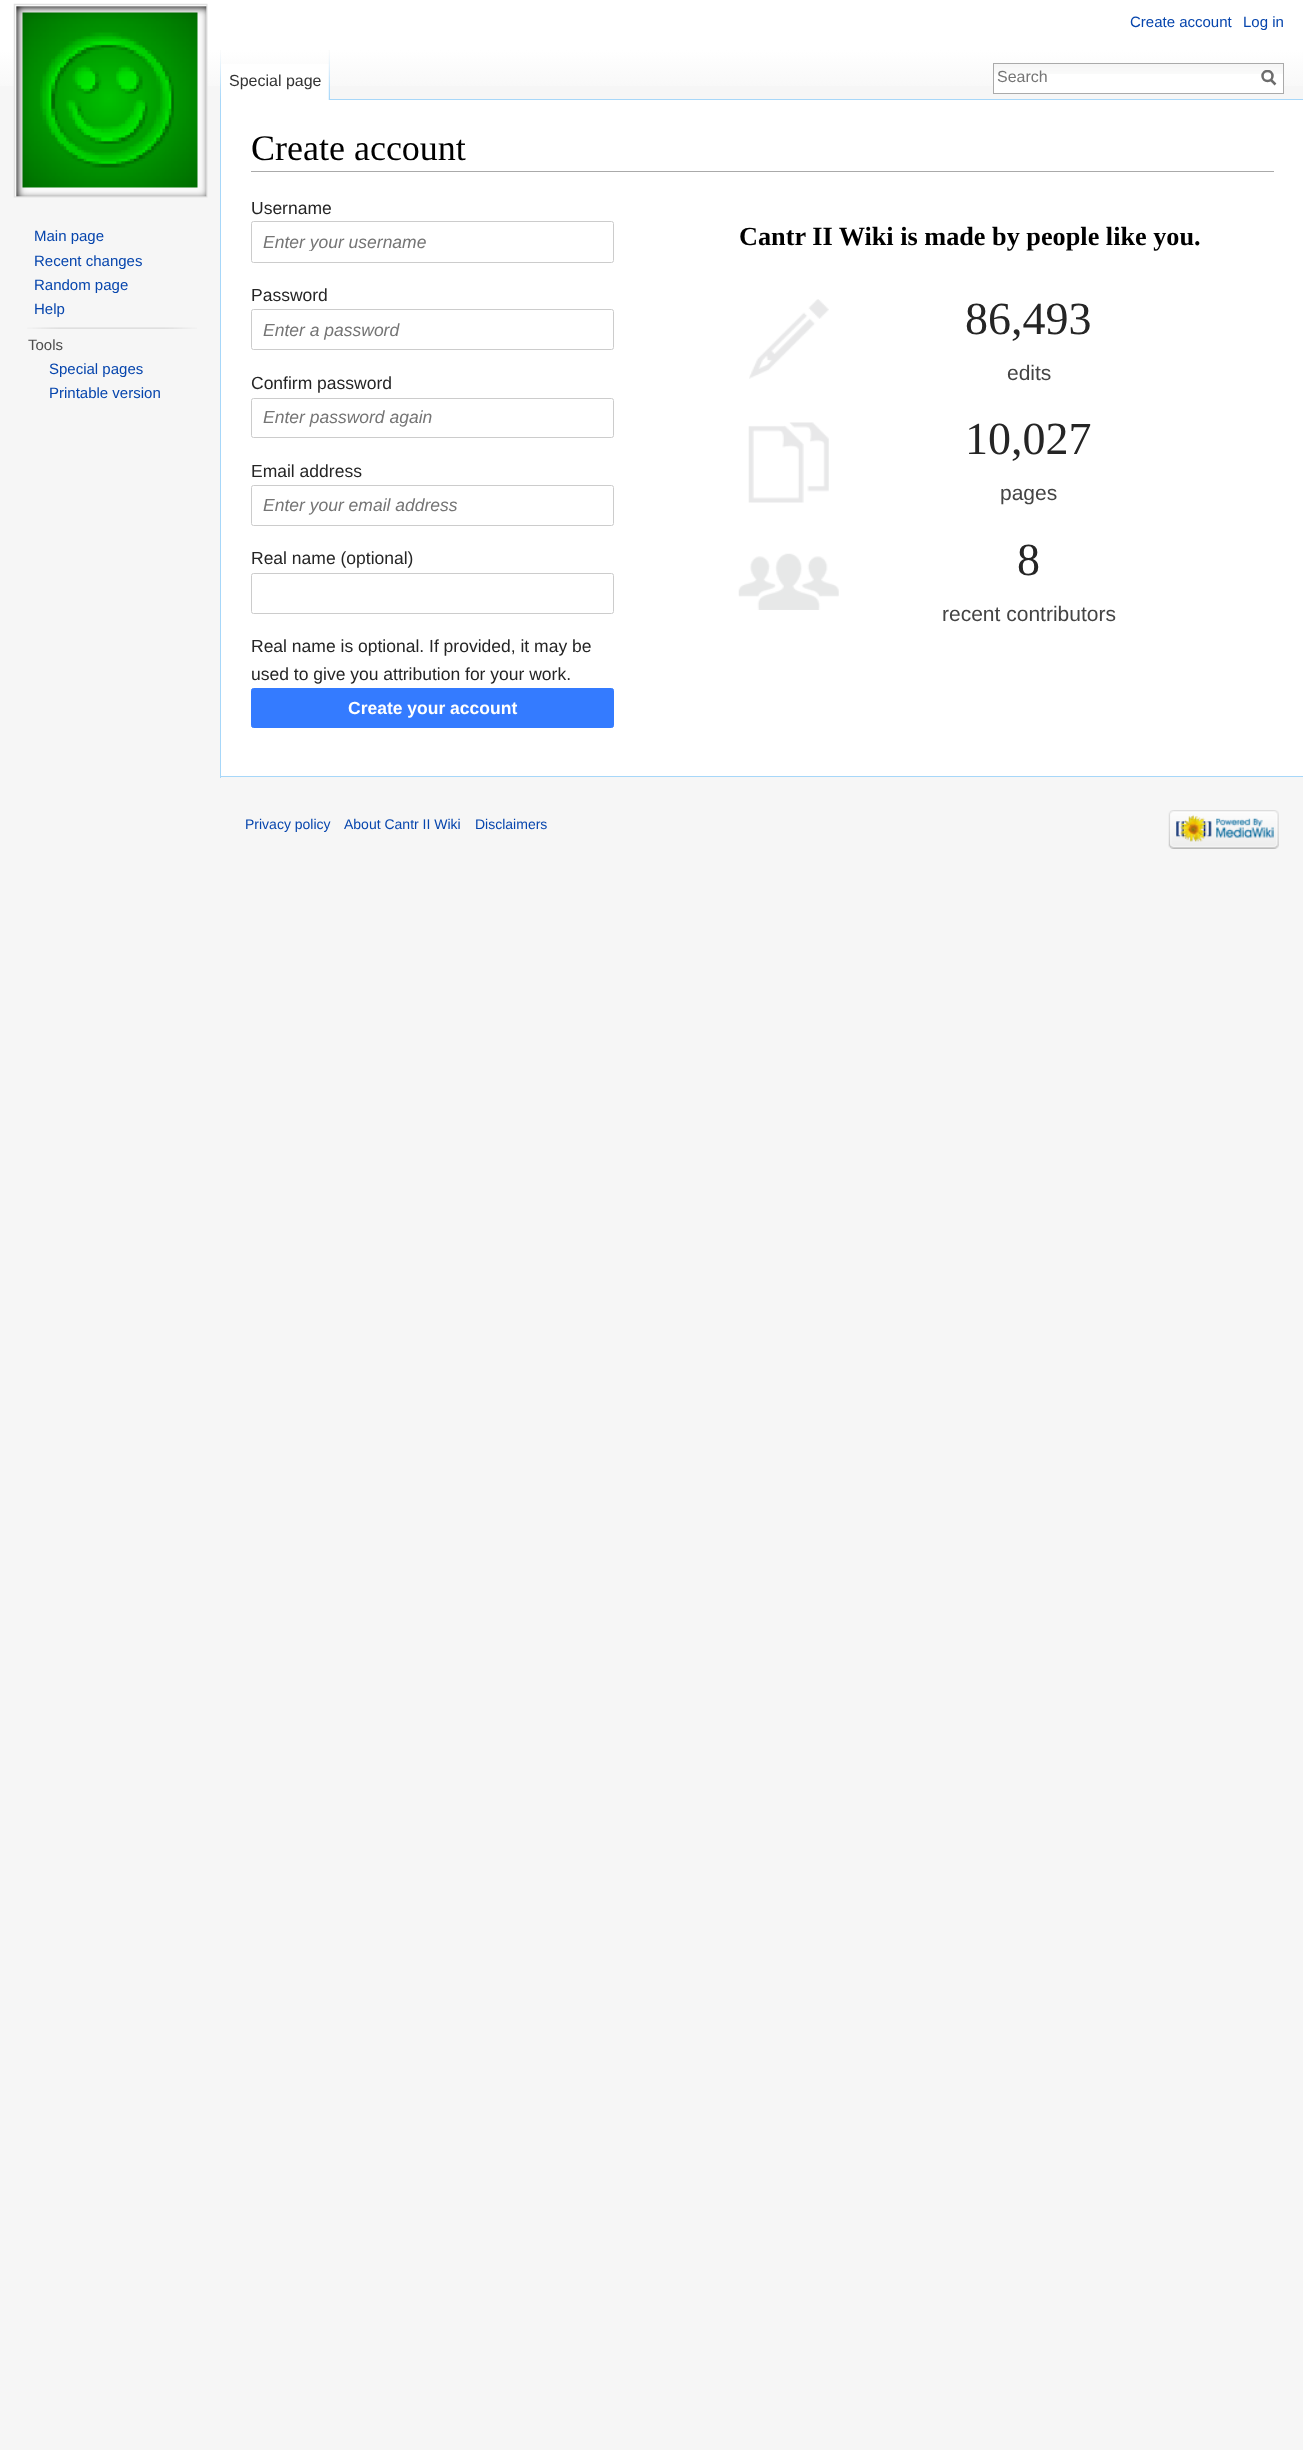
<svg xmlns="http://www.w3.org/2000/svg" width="1303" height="2450">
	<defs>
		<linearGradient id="g1" gradientUnits="userSpaceOnUse" x1="652" y1="0" x2="652" y2="100"><stop offset="0.5" stop-color="#FFFFFF" /><stop offset="1" stop-color="#F6F6F6" /></linearGradient>
		<clipPath id="clip1"><rect x="1261" y="70" width="15" height="16" /></clipPath>
		<clipPath id="clip2"><rect x="263" y="231" width="345" height="20" /></clipPath>
	</defs>
	<rect width="100%" height="100%" fill="#F6F6F6" />
	<rect x="0" y="0" width="1303" height="86" fill="url(#g1)" />
	<g font-family="Liberation Sans" font-size="15" fill="#0645AD">
		<text x="1130" y="27">Create account</text>
		<text x="1243" y="27">Log in</text>
	</g>
	<image x="220" y="50" width="1" height="49" href="assets/img1.png" />
	<rect x="221" y="64" width="108" height="36" fill="#FFFFFF" />
	<image x="328" y="50" width="2" height="50" href="assets/img2.png" />
	<text x="229" y="86" font-family="Liberation Sans" font-size="16" fill="#333333">Special page</text>
	<rect x="994" y="74" width="289" height="19" fill="#FFFFFF" />
	<image x="994" y="64" width="289" height="10" href="assets/img3.png" />
	<rect x="993.5" y="63.5" width="290" height="30" fill="none" stroke="#AAAAAA" />
	<text x="997" y="82" font-family="Liberation Sans" font-size="16" fill="#757575">Search</text>
	<path d="M1275.5 84.5L1270.5 79.5" fill="none" stroke="#6C6C6C" stroke-width="2.5" />
	<g clip-path="url(#clip1)">
		<circle cx="1267.5" cy="76" r="5" fill="none" stroke="#6C6C6C" stroke-width="2.5" />
	</g>
	<image x="13" y="3" width="195" height="195" href="assets/img4.png" />
	<g font-family="Liberation Sans" font-size="15" fill="#0645AD">
		<text x="34" y="241">Main page</text>
		<text x="34" y="266">Recent changes</text>
		<text x="34" y="290">Random page</text>
		<text x="34" y="314">Help</text>
	</g>
	<image x="27" y="327" width="170" height="2" href="assets/img5.png" />
	<text x="28" y="350" font-family="Liberation Sans" font-size="15" fill="#4D4D4D">Tools</text>
	<g font-family="Liberation Sans" font-size="15" fill="#0645AD">
		<text x="49" y="374">Special pages</text>
		<text x="49" y="398">Printable version</text>
	</g>
	<rect x="221" y="100" width="1082" height="676" fill="#FFFFFF" />
	<rect x="330" y="99" width="973" height="1" fill="#A7D7F9" />
	<rect x="220" y="776" width="1083" height="1" fill="#A7D7F9" />
	<rect x="220" y="99" width="1" height="679" fill="#A7D7F9" />
	<rect x="251" y="171" width="1023" height="1" fill="#AAAAAA" />
	<text x="251" y="160" font-family="Liberation Serif" font-size="36" fill="#000000">Create account</text>
	<text x="251" y="214" font-family="Liberation Sans" font-size="17.5" fill="#252525">Username</text>
	<rect x="251.5" y="221.5" width="362" height="41" rx="2" fill="none" stroke="#CCCCCC" />
	<g clip-path="url(#clip2)">
		<text x="263" y="248" font-family="Liberation Sans" font-size="17.5" font-style="italic" fill="#757575">Enter your username</text>
	</g>
	<text x="251" y="301" font-family="Liberation Sans" font-size="17.5" fill="#252525">Password</text>
	<rect x="251.5" y="309.5" width="362" height="40" rx="2" fill="none" stroke="#CCCCCC" />
	<text x="263" y="336" font-family="Liberation Sans" font-size="17.5" font-style="italic" fill="#757575">Enter a password</text>
	<text x="251" y="389" font-family="Liberation Sans" font-size="17.5" fill="#252525">Confirm password</text>
	<rect x="251.5" y="398.5" width="362" height="39" rx="2" fill="none" stroke="#CCCCCC" />
	<text x="263" y="423" font-family="Liberation Sans" font-size="17.5" font-style="italic" fill="#757575">Enter password again</text>
	<text x="251" y="477" font-family="Liberation Sans" font-size="17.5" fill="#252525">Email address</text>
	<rect x="251.5" y="485.5" width="362" height="40" rx="2" fill="none" stroke="#CCCCCC" />
	<text x="263" y="511" font-family="Liberation Sans" font-size="17.5" font-style="italic" fill="#757575">Enter your email address</text>
	<text x="251" y="564" font-family="Liberation Sans" font-size="17.5" fill="#252525">Real name (optional)</text>
	<rect x="251.5" y="573.5" width="362" height="40" rx="2" fill="none" stroke="#CCCCCC" />
	<g font-family="Liberation Sans" font-size="17.5" fill="#252525">
		<text x="251" y="652">Real name is optional. If provided, it may be</text>
		<text x="251" y="680">used to give you attribution for your work.</text>
	</g>
	<rect x="251.5" y="688.5" width="362" height="39" rx="2" fill="#347BFF" stroke="#347BFF" />
	<text x="348" y="714" font-family="Liberation Sans" font-size="17.5" font-weight="700" fill="#FFFFFF">Create your account</text>
	<text x="739" y="245" font-family="Liberation Serif" font-size="26.25" font-weight="700" fill="#000000">Cantr II Wiki is made by people like you.</text>
	<image x="749" y="299" width="80" height="80" href="assets/img6.png" />
	<text x="965" y="334" font-family="Liberation Serif" font-size="46" fill="#252525">86,493</text>
	<text x="1007" y="380" font-family="Liberation Sans" font-size="21" fill="#444444">edits</text>
	<image x="748" y="422" width="81" height="81" href="assets/img7.png" />
	<text x="965" y="454" font-family="Liberation Serif" font-size="46" fill="#252525">10,027</text>
	<text x="1000" y="500" font-family="Liberation Sans" font-size="21" fill="#444444">pages</text>
	<image x="738" y="553" width="101" height="57" href="assets/img8.png" />
	<text x="1017" y="575" font-family="Liberation Serif" font-size="46" fill="#252525">8</text>
	<text x="942" y="621" font-family="Liberation Sans" font-size="21" fill="#444444">recent contributors</text>
	<g font-family="Liberation Sans" font-size="14" fill="#0645AD">
		<text x="245" y="829">Privacy policy</text>
		<text x="344" y="829">About Cantr II Wiki</text>
		<text x="475" y="829">Disclaimers</text>
	</g>
	<image x="1168" y="810" width="111" height="39" href="assets/img9.png" />
</svg>
